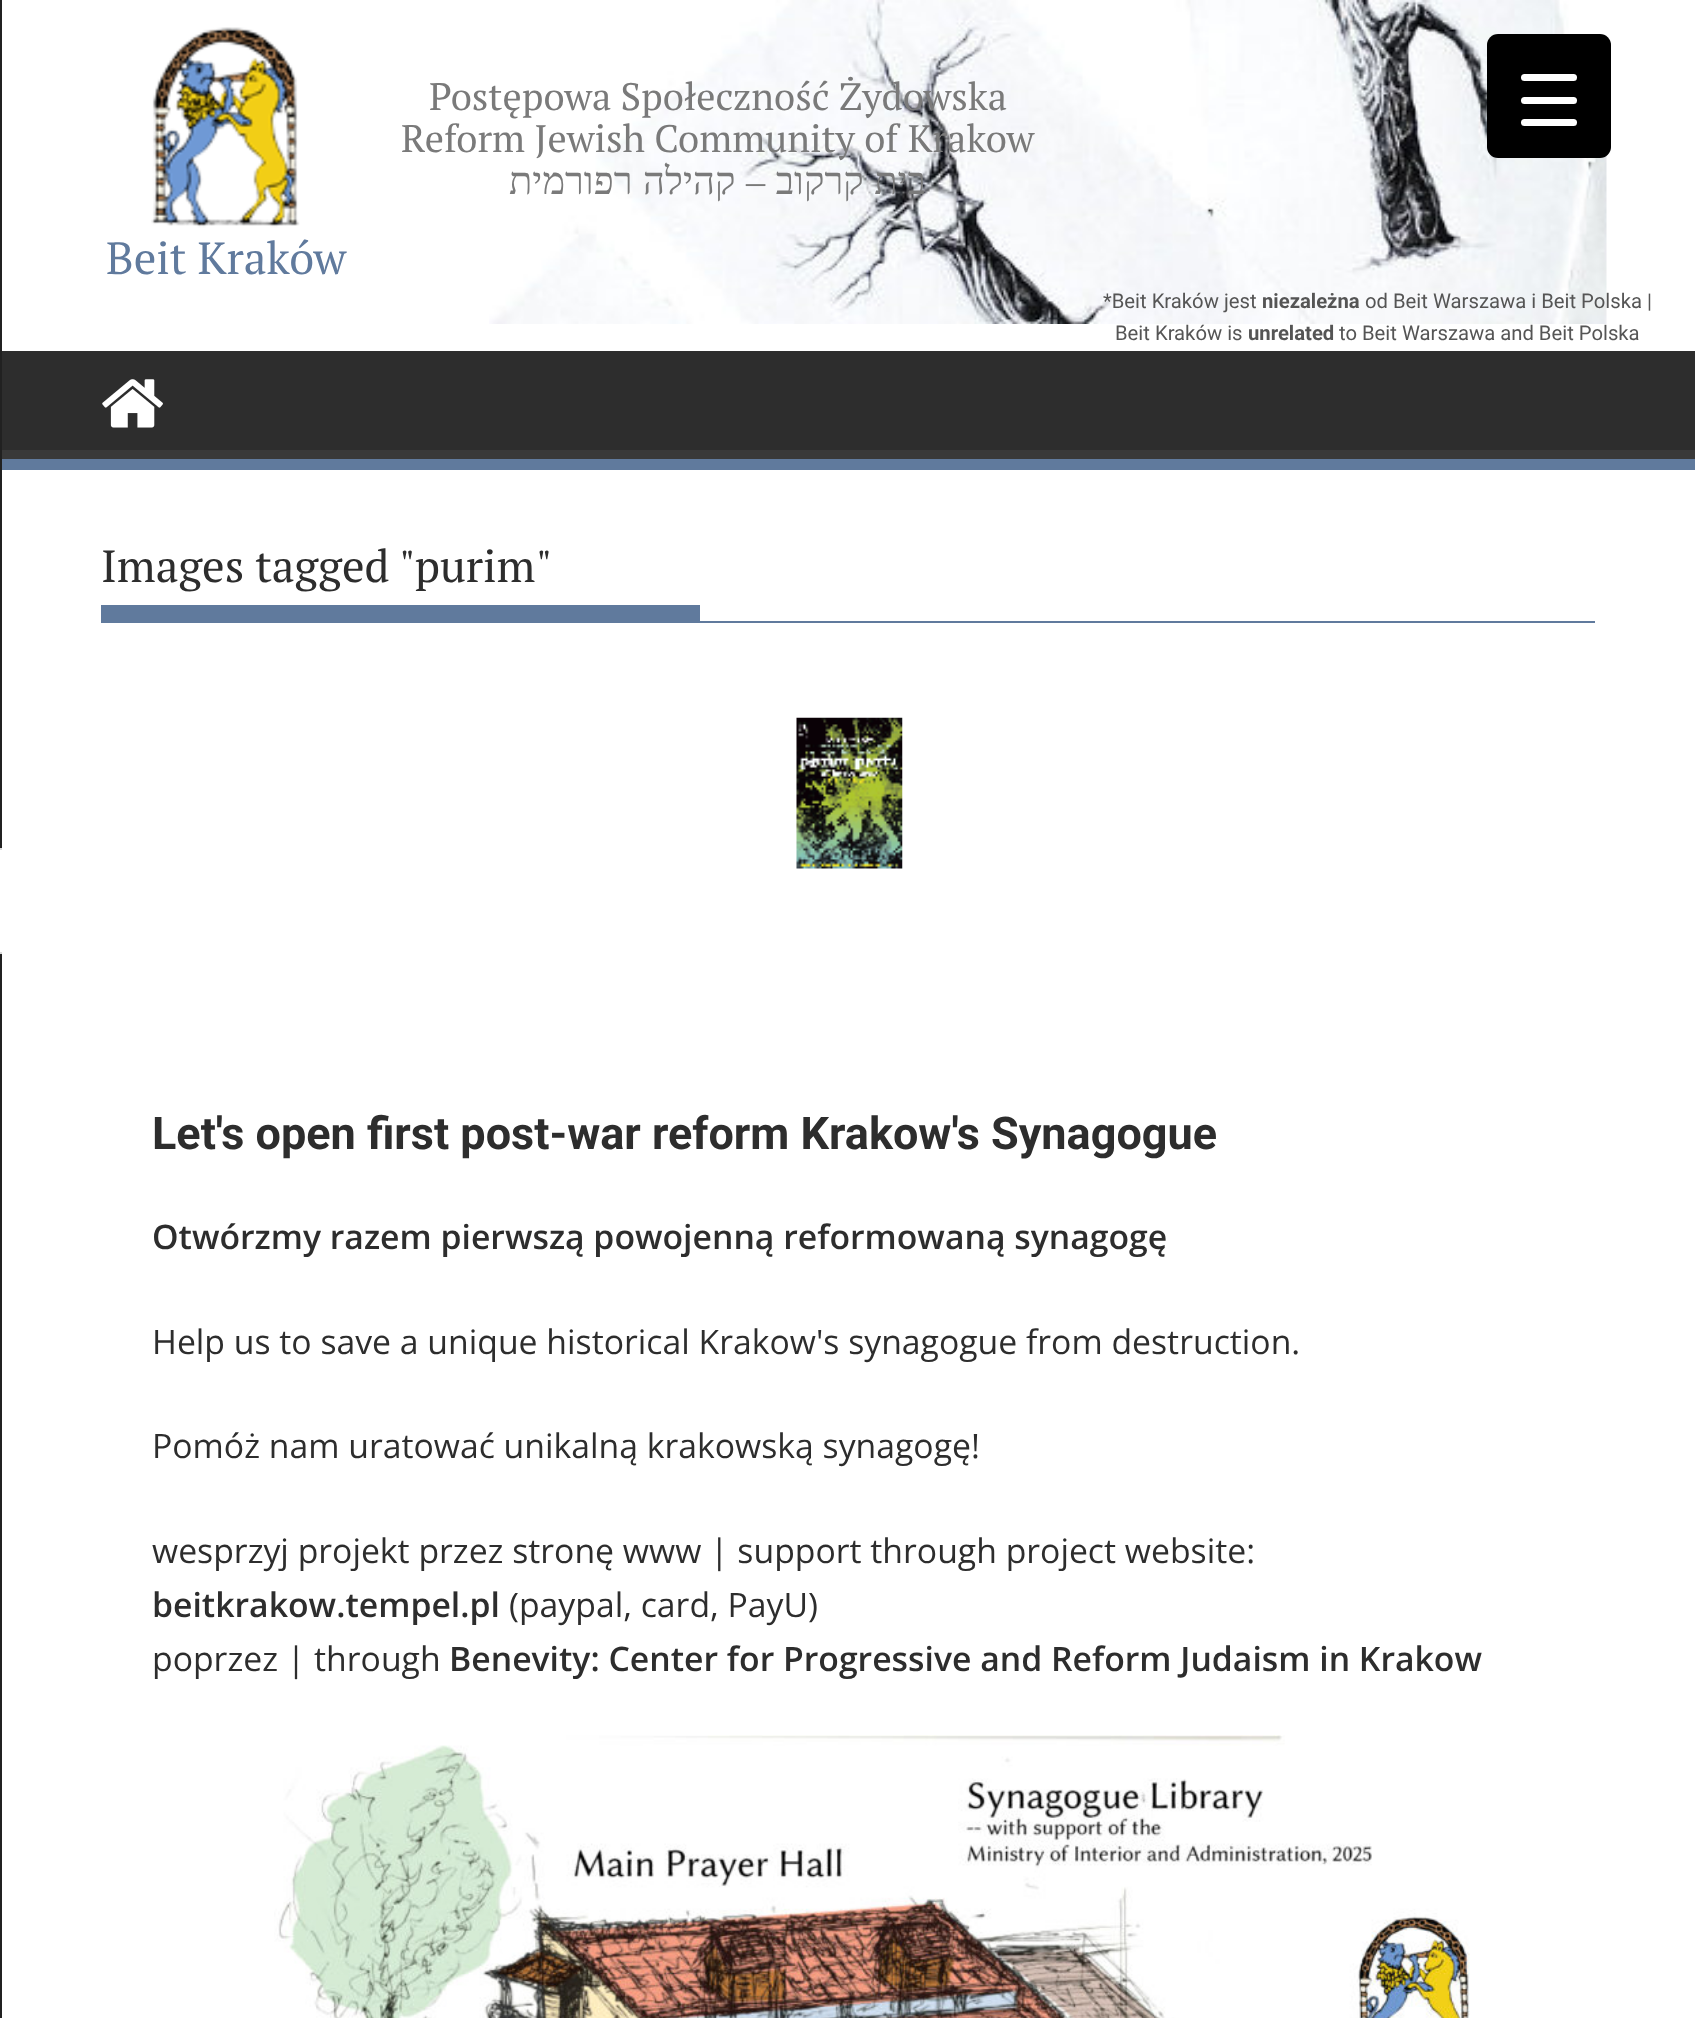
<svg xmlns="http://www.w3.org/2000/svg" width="1695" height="2018">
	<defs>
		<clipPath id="clip1"><rect x="0" y="351" width="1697" height="108" /></clipPath>
		<clipPath id="clip2"><rect x="0" y="0" width="2" height="2018" /></clipPath>
	</defs>
	<rect width="100%" height="100%" fill="#FFFFFF" />
	<rect x="2" y="351" width="1693" height="99" fill="#2D2D2D" />
	<g clip-path="url(#clip1)">
		<path d="M-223 128H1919V682H-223ZM-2 338H1694C1695 338 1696 339 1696 340V448C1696 449 1695 450 1694 450H-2C-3 450-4 449-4 448V340C-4 339-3 338-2 338Z" fill="#393939" fill-rule="evenodd" />
	</g>
	<rect x="0" y="0" width="2" height="2018" fill="#212121" />
	<rect x="0" y="848" width="2" height="106" fill="#FFFFFF" />
	<g clip-path="url(#clip2)">
		<rect x="-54" y="849" width="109" height="104" rx="52" fill="none" stroke="#DADADA" stroke-width="2" />
	</g>
	<image x="489" y="0" width="1118" height="324" href="assets/img1.png" />
	<rect x="1487" y="34" width="124" height="124" rx="11" fill="#000000" />
	<rect x="1521" y="97" width="56" height="7" rx="3.5" fill="#FFFFFF" />
	<rect x="1521" y="74" width="56" height="7" rx="3.5" fill="#FFFFFF" />
	<rect x="1521" y="119" width="56" height="7" rx="3.5" fill="#FFFFFF" />
	<image x="151" y="27" width="149" height="201" href="assets/img2.png" />
	<g font-family="PT Serif" font-size="38.25" fill="#7A7A7A">
		<text x="429" y="110">Postępowa Społeczność Żydowska</text>
		<text x="401" y="152">Reform Jewish Community of Krakow</text>
	</g>
	<text x="926" y="194" word-spacing="1" font-family="Liberation Serif" font-size="38.25" direction="rtl" fill="#7A7A7A">בית קרקוב – קהילה רפורמית</text>
	<text x="106" y="274" font-family="PT Serif" font-size="45" fill="#607A9D">Beit Kraków</text>
	<text x="1103" y="308" font-family="Roboto" font-size="20.25" fill="#555555">*Beit Kraków jest</text>
	<text x="1262" y="308" font-family="Roboto" font-size="20.25" font-weight="700" fill="#555555">niezależna</text>
	<g font-family="Roboto" font-size="20.25" fill="#555555">
		<text x="1365" y="308">od Beit Warszawa i Beit Polska |</text>
		<text x="1115" y="340">Beit Kraków is</text>
	</g>
	<text x="1248" y="340" font-family="Roboto" font-size="20.25" font-weight="700" fill="#555555">unrelated</text>
	<text x="1339" y="340" font-family="Roboto" font-size="20.25" fill="#555555">to Beit Warszawa and Beit Polska</text>
	<rect x="2" y="459" width="1693" height="11" fill="#607A9D" />
	<image x="102" y="379" width="61" height="49" href="assets/img3.png" />
	<rect x="101" y="621" width="1494" height="2" fill="#607A9D" />
	<text x="101" y="582" font-family="PT Serif" font-size="45" fill="#2D2D2D">Images tagged "purim"</text>
	<rect x="101" y="605" width="599" height="16" fill="#607A9D" />
	<image x="796" y="717" width="107" height="152" href="assets/img4.png" />
	<text x="152" y="1149" font-family="Roboto" font-size="45" font-weight="700" fill="#2D2D2D">Let's open first post-war reform Krakow's Synagogue</text>
	<text x="152" y="1249" font-family="Open Sans" font-size="33.75" font-weight="600" fill="#2D2D2D">Otwórzmy razem pierwszą powojenną reformowaną synagogę</text>
	<g font-family="Open Sans" font-size="33.75" fill="#2D2D2D">
		<text x="152" y="1354">Help us to save a unique historical Krakow's synagogue from destruction.</text>
		<text x="152" y="1458">Pomóż nam uratować unikalną krakowską synagogę!</text>
		<text x="152" y="1563">wesprzyj projekt przez stronę www | support through project website:</text>
	</g>
	<text x="152" y="1617" font-family="Open Sans" font-size="33.75" font-weight="600" fill="#2D2D2D">beitkrakow.tempel.pl</text>
	<g font-family="Open Sans" font-size="33.75" fill="#2D2D2D">
		<text x="509" y="1617">(paypal, card, PayU)</text>
		<text x="152" y="1671">poprzez | through</text>
	</g>
	<text x="449" y="1671" font-family="Open Sans" font-size="33.75" font-weight="600" fill="#2D2D2D">Benevity: Center for Progressive and Reform Judaism in Krakow</text>
	<image x="274" y="1735" width="1196" height="283" href="assets/img5.png" />
</svg>
